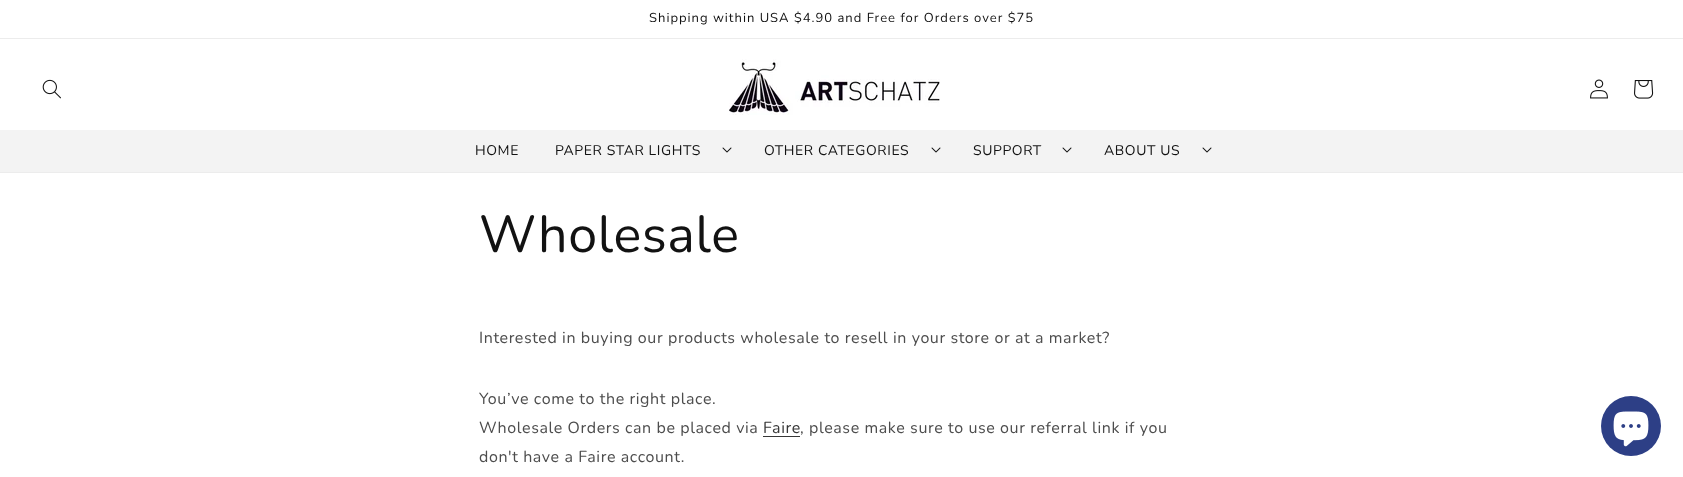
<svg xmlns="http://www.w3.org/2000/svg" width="1683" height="477">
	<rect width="100%" height="100%" fill="#FFFFFF" />
	<rect x="0" y="38" width="1683" height="1" fill="#ECECEC" />
	<text x="649" y="22" font-family="Nunito" font-size="13" letter-spacing="1" fill="#121212">Shipping within USA $4.90 and Free for Orders over $75</text>
	<rect x="0" y="172" width="1683" height="1" fill="#ECECEC" />
	<image x="42" y="79" width="19" height="20" href="assets/img1.png" />
	<image x="729" y="59" width="211" height="56" href="assets/img2.png" />
	<image x="1590" y="79" width="18" height="20" href="assets/img3.png" />
	<image x="1634" y="80" width="20" height="19" href="assets/img4.png" />
	<rect x="0" y="130" width="1683" height="42" fill="#F3F3F3" />
	<g font-family="Nunito" font-size="14" letter-spacing="0.6" fill="#121212">
		<text x="475" y="155">HOME</text>
		<text x="555" y="155">PAPER STAR LIGHTS</text>
	</g>
	<image x="722" y="147" width="10" height="6" href="assets/img5.png" />
	<text x="764" y="155" font-family="Nunito" font-size="14" letter-spacing="0.6" fill="#121212">OTHER CATEGORIES</text>
	<image x="931" y="147" width="10" height="6" href="assets/img5.png" />
	<text x="973" y="155" font-family="Nunito" font-size="14" letter-spacing="0.6" fill="#121212">SUPPORT</text>
	<image x="1062" y="147" width="10" height="6" href="assets/img5.png" />
	<text x="1104" y="155" font-family="Nunito" font-size="14" letter-spacing="0.6" fill="#121212">ABOUT US</text>
	<image x="1202" y="147" width="10" height="6" href="assets/img5.png" />
	<text x="479" y="252" font-family="Nunito" font-size="52" letter-spacing="0.6" fill="#121212">Wholesale</text>
	<g font-family="Nunito" font-size="16" letter-spacing="0.6" fill="#4D4D4D">
		<text x="479" y="343">Interested in buying our products wholesale to resell in your store or at a market?</text>
		<text x="479" y="404">You’ve come to the right place.</text>
		<text x="479" y="433">Wholesale Orders can be placed via</text>
	</g>
	<text x="763" y="433" font-family="Nunito" font-size="16" letter-spacing="0.6" fill="#363636">Faire</text>
	<rect x="763" y="436" width="37" height="1" fill="#363636" />
	<g font-family="Nunito" font-size="16" letter-spacing="0.6" fill="#4D4D4D">
		<text x="800" y="433">, please make sure to use our referral link if you</text>
		<text x="479" y="462">don't have a Faire account.</text>
	</g>
	<circle cx="1631" cy="426" r="30" fill="#2D3F86" />
	<image x="1613" y="411" width="36" height="36" href="assets/img6.png" />
</svg>
